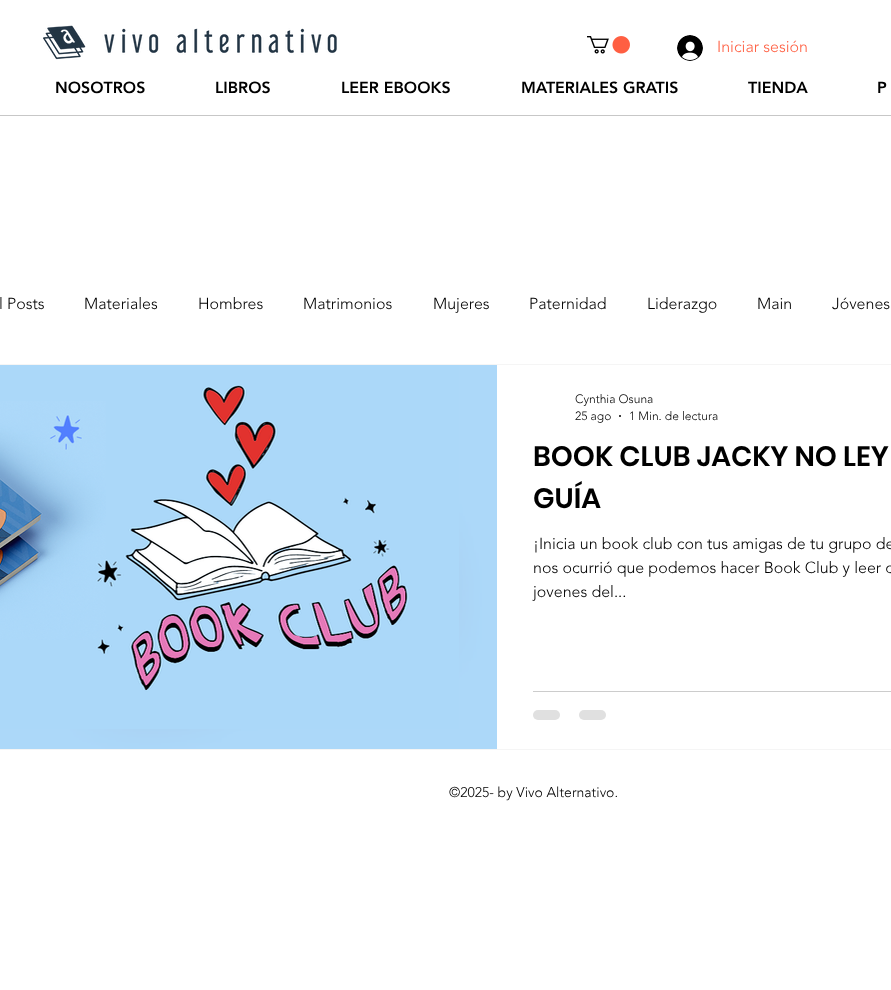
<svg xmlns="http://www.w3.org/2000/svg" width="891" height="990">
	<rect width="100%" height="100%" fill="#FFFFFF" />
	<image x="587" y="36" width="43" height="18" href="assets/img1.png" />
	<image x="677" y="35" width="26" height="26" href="assets/img2.png" />
	<text x="717" y="52" font-family="'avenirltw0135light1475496'" font-size="16" font-weight="300" fill="#FF5F42">Iniciar sesión</text>
	<image x="43" y="25" width="294" height="35" href="assets/img3.png" />
	<g font-family="'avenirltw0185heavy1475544'" font-size="16" font-weight="900" fill="#000000">
		<text x="55" y="93">NOSOTROS</text>
		<text x="215" y="93">LIBROS</text>
		<text x="341" y="93">LEER EBOOKS</text>
		<text x="521" y="93">MATERIALES GRATIS</text>
		<text x="748" y="93">TIENDA</text>
		<text x="877" y="93">P</text>
	</g>
	<rect x="0" y="115" width="891" height="1" fill="#C7C7C7" />
	<g font-family="'avenirltw0135light1475496'" font-size="16" font-weight="300" fill="#000000">
		<text x="-1" y="309">l Posts</text>
		<text x="84" y="309">Materiales</text>
		<text x="198" y="309">Hombres</text>
		<text x="303" y="309">Matrimonios</text>
		<text x="433" y="309">Mujeres</text>
		<text x="529" y="309">Paternidad</text>
		<text x="647" y="309">Liderazgo</text>
		<text x="757" y="309">Main</text>
		<text x="832" y="309">Jóvenes</text>
	</g>
	<rect x="-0.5" y="364.5" width="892" height="385" fill="none" stroke="#F5F5F5" />
	<image x="0" y="365" width="497" height="384" href="assets/img4.png" />
	<image x="0" y="365" width="459" height="364" href="assets/img5.png" />
	<g font-family="'avenirltw0135light1475496'" font-size="12" font-weight="300" fill="#000000">
		<text x="575" y="403">Cynthia Osuna</text>
		<text x="575" y="420">25 ago</text>
	</g>
	<circle cx="620" cy="416" r="1" fill="#000000" />
	<text x="629" y="420" font-family="'avenirltw0135light1475496'" font-size="12" font-weight="300" fill="#000000">1 Min. de lectura</text>
	<g font-family="Poppins" font-size="28" font-weight="600" fill="#000000">
		<text x="533" y="466">BOOK CLUB JACKY NO LEY</text>
		<text x="533" y="508">GUÍA</text>
	</g>
	<g font-family="'avenirltw0135light1475496'" font-size="16" font-weight="300" fill="#000000">
		<text x="533" y="549">¡Inicia un book club con tus amigas de tu grupo de</text>
		<text x="533" y="573">nos ocurrió que podemos hacer Book Club y leer c</text>
		<text x="533" y="597">jovenes del...</text>
	</g>
	<rect x="533" y="691" width="358" height="1" fill="#CCCCCC" />
	<rect x="533" y="710" width="27" height="10" rx="5" fill="#E0E0E0" />
	<rect x="579" y="710" width="27" height="10" rx="5" fill="#E0E0E0" />
	<text x="449" y="797" font-family="'avenirltw0135light1475496'" font-size="14" font-weight="300" fill="#000000">©2025- by Vivo Alternativo.</text>
</svg>
